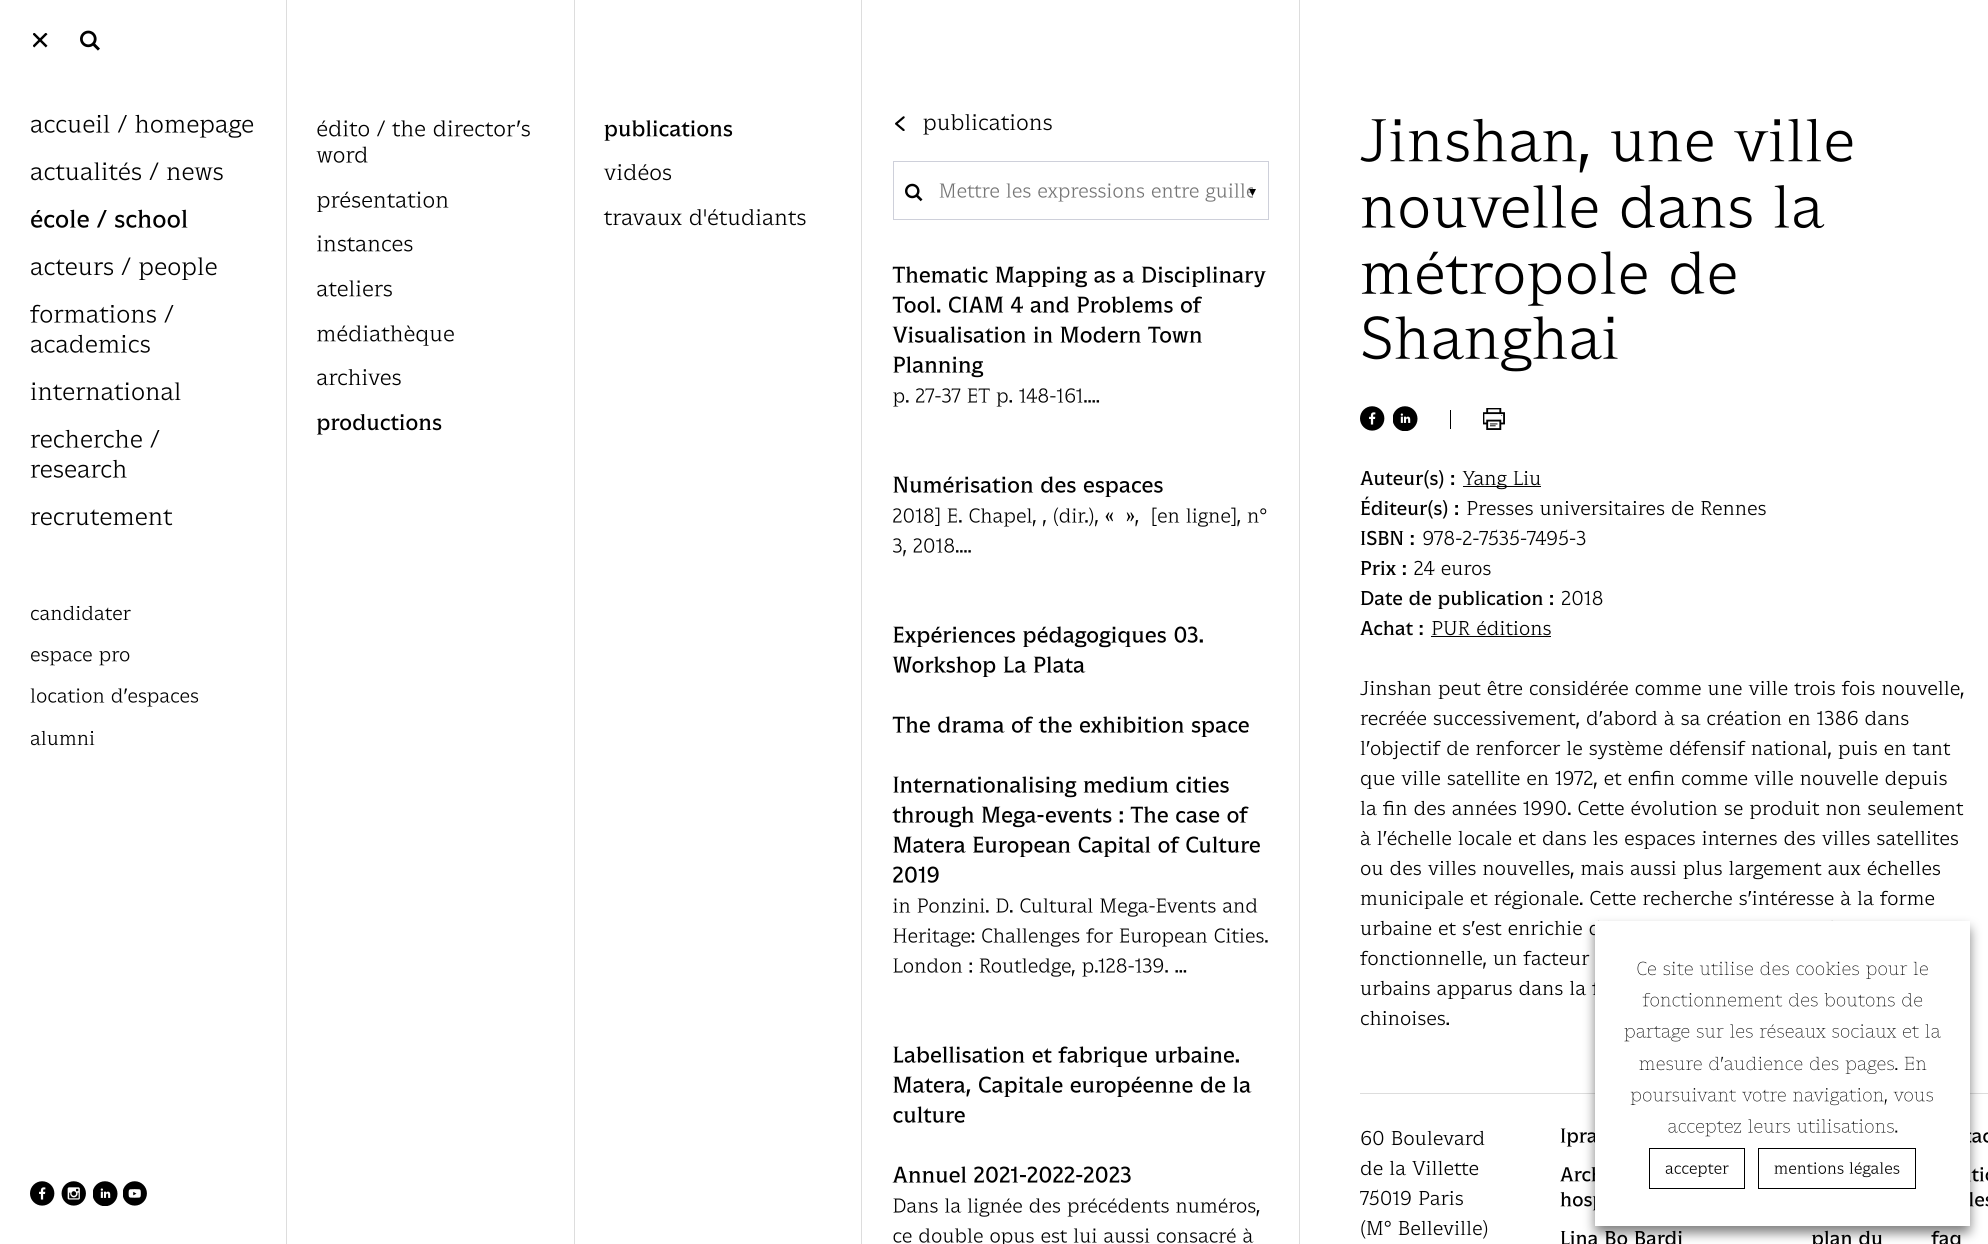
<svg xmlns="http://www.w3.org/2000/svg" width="1988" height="1244">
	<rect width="100%" height="100%" fill="#FFFFFF" />
	<rect x="286" y="0" width="1" height="1244" fill="#DDDDDD" />
	<image x="31" y="114" width="223" height="24" href="assets/img1.png" />
	<image x="31" y="162" width="192" height="19" href="assets/img2.png" />
	<image x="31" y="209" width="157" height="19" href="assets/img3.png" />
	<image x="31" y="257" width="186" height="23" href="assets/img4.png" />
	<image x="30" y="304" width="144" height="19" href="assets/img5.png" />
	<image x="31" y="334" width="119" height="19" href="assets/img6.png" />
	<image x="30" y="382" width="151" height="19" href="assets/img7.png" />
	<image x="30" y="429" width="130" height="19" href="assets/img8.png" />
	<image x="30" y="459" width="97" height="19" href="assets/img9.png" />
	<image x="30" y="509" width="143" height="17" href="assets/img10.png" />
	<image x="31" y="605" width="100" height="16" href="assets/img11.png" />
	<image x="31" y="651" width="99" height="15" href="assets/img12.png" />
	<image x="30" y="688" width="169" height="19" href="assets/img13.png" />
	<image x="31" y="730" width="64" height="16" href="assets/img14.png" />
	<image x="30" y="1181" width="25" height="25" href="assets/img15.png" />
	<image x="61" y="1181" width="25" height="25" href="assets/img16.png" />
	<image x="93" y="1181" width="25" height="25" href="assets/img17.png" />
	<image x="123" y="1181" width="24" height="25" href="assets/img18.png" />
	<rect x="574" y="0" width="1" height="1244" fill="#DDDDDD" />
	<image x="317" y="120" width="213" height="17" href="assets/img19.png" />
	<image x="316" y="146" width="52" height="17" href="assets/img20.png" />
	<image x="317" y="191" width="132" height="21" href="assets/img21.png" />
	<image x="317" y="235" width="96" height="17" href="assets/img22.png" />
	<image x="317" y="280" width="75" height="17" href="assets/img23.png" />
	<image x="317" y="325" width="137" height="21" href="assets/img24.png" />
	<image x="317" y="369" width="84" height="17" href="assets/img25.png" />
	<image x="316" y="414" width="126" height="21" href="assets/img26.png" />
	<rect x="861" y="0" width="1" height="1244" fill="#DDDDDD" />
	<image x="604" y="120" width="129" height="21" href="assets/img27.png" />
	<image x="603" y="164" width="69" height="17" href="assets/img28.png" />
	<image x="603" y="209" width="203" height="17" href="assets/img29.png" />
	<image x="33" y="33" width="15" height="15" href="assets/img30.png" />
	<image x="80" y="30" width="20" height="21" href="assets/img31.png" />
	<rect x="1299" y="0" width="1" height="1244" fill="#DDDDDD" />
	<image x="895" y="116" width="10" height="15" href="assets/img32.png" />
	<image x="923" y="114" width="129" height="21" href="assets/img33.png" />
	<rect x="893.5" y="161.5" width="375" height="58" fill="none" stroke="#CED0DA" />
	<image x="939" y="183" width="314" height="19" href="assets/img34.png" />
	<image x="905" y="183" width="18" height="19" href="assets/img35.png" />
	<path d="M1252.5 196L1249 189H1256Z" fill="#000000" fill-rule="evenodd" />
	<image x="892" y="266" width="375" height="22" href="assets/img36.png" />
	<image x="892" y="296" width="310" height="17" href="assets/img37.png" />
	<image x="892" y="326" width="310" height="17" href="assets/img38.png" />
	<image x="893" y="356" width="91" height="22" href="assets/img39.png" />
	<image x="893" y="388" width="207" height="19" href="assets/img40.png" />
	<image x="893" y="476" width="270" height="21" href="assets/img41.png" />
	<image x="893" y="507" width="374" height="20" href="assets/img42.png" />
	<image x="893" y="538" width="78" height="19" href="assets/img43.png" />
	<image x="893" y="626" width="310" height="22" href="assets/img44.png" />
	<image x="892" y="656" width="194" height="21" href="assets/img45.png" />
	<image x="892" y="716" width="357" height="21" href="assets/img46.png" />
	<image x="893" y="776" width="336" height="22" href="assets/img47.png" />
	<image x="892" y="806" width="357" height="22" href="assets/img48.png" />
	<image x="893" y="836" width="367" height="21" href="assets/img49.png" />
	<image x="893" y="866" width="46" height="17" href="assets/img50.png" />
	<image x="893" y="898" width="365" height="19" href="assets/img51.png" />
	<image x="893" y="928" width="375" height="19" href="assets/img52.png" />
	<image x="893" y="958" width="294" height="19" href="assets/img53.png" />
	<image x="893" y="1046" width="346" height="21" href="assets/img54.png" />
	<image x="893" y="1076" width="359" height="21" href="assets/img55.png" />
	<image x="893" y="1106" width="72" height="17" href="assets/img56.png" />
	<image x="892" y="1166" width="239" height="17" href="assets/img57.png" />
	<image x="893" y="1198" width="367" height="19" href="assets/img58.png" />
	<image x="893" y="1228" width="361" height="16" href="assets/img59.png" />
	<image x="1360" y="118" width="493" height="55" href="assets/img60.png" />
	<image x="1361" y="185" width="464" height="44" href="assets/img61.png" />
	<image x="1361" y="251" width="375" height="55" href="assets/img62.png" />
	<image x="1362" y="316" width="256" height="56" href="assets/img63.png" />
	<image x="1360" y="406" width="25" height="25" href="assets/img15.png" />
	<image x="1393" y="406" width="25" height="25" href="assets/img17.png" />
	<rect x="1450" y="410" width="1" height="19" fill="#000000" />
	<image x="1483" y="408" width="22" height="22" href="assets/img64.png" />
	<image x="1360" y="470" width="95" height="19" href="assets/img65.png" />
	<rect x="1463" y="486" width="78" height="1" fill="#000000" />
	<image x="1462" y="471" width="79" height="19" href="assets/img66.png" />
	<image x="1360" y="496" width="98" height="23" href="assets/img67.png" />
	<image x="1467" y="500" width="299" height="16" href="assets/img68.png" />
	<image x="1360" y="530" width="54" height="16" href="assets/img69.png" />
	<image x="1423" y="529" width="163" height="17" href="assets/img70.png" />
	<image x="1360" y="561" width="46" height="14" href="assets/img71.png" />
	<image x="1414" y="560" width="77" height="16" href="assets/img72.png" />
	<image x="1360" y="590" width="193" height="19" href="assets/img73.png" />
	<image x="1562" y="590" width="41" height="16" href="assets/img74.png" />
	<image x="1360" y="620" width="63" height="16" href="assets/img75.png" />
	<image x="1432" y="620" width="119" height="16" href="assets/img76.png" />
	<rect x="1431" y="636" width="120" height="1" fill="#000000" />
	<image x="1360" y="680" width="604" height="19" href="assets/img77.png" />
	<image x="1360" y="710" width="549" height="19" href="assets/img78.png" />
	<image x="1360" y="740" width="591" height="20" href="assets/img79.png" />
	<image x="1361" y="770" width="586" height="19" href="assets/img80.png" />
	<image x="1360" y="800" width="604" height="19" href="assets/img81.png" />
	<image x="1361" y="830" width="597" height="19" href="assets/img82.png" />
	<image x="1361" y="860" width="579" height="20" href="assets/img83.png" />
	<image x="1360" y="890" width="575" height="20" href="assets/img84.png" />
	<image x="1360" y="920" width="473" height="16" href="assets/img85.png" />
	<image x="1360" y="950" width="230" height="19" href="assets/img86.png" />
	<image x="1360" y="980" width="235" height="19" href="assets/img87.png" />
	<image x="1361" y="1010" width="88" height="16" href="assets/img88.png" />
	<rect x="1360" y="1093" width="628" height="1" fill="#DDDDDD" />
	<image x="1361" y="1130" width="124" height="16" href="assets/img89.png" />
	<image x="1361" y="1160" width="118" height="16" href="assets/img90.png" />
	<image x="1360" y="1189" width="103" height="17" href="assets/img91.png" />
	<image x="1361" y="1220" width="127" height="19" href="assets/img92.png" />
	<image x="1560" y="1128" width="35" height="19" href="assets/img93.png" />
	<image x="1560" y="1167" width="35" height="15" href="assets/img94.png" />
	<image x="1560" y="1192" width="35" height="19" href="assets/img95.png" />
	<image x="1560" y="1230" width="122" height="14" href="assets/img96.png" />
	<image x="1970" y="1132" width="18" height="11" href="assets/img97.png" />
	<image x="1970" y="1167" width="18" height="15" href="assets/img98.png" />
	<image x="1970" y="1192" width="18" height="15" href="assets/img99.png" />
	<image x="1811" y="1230" width="71" height="14" href="assets/img100.png" />
	<image x="1931" y="1230" width="30" height="14" href="assets/img101.png" />
	<rect x="1595" y="928" width="375" height="305" fill="#000000" fill-opacity="0.5" filter="blur(6px)" />
	<rect x="1595" y="921" width="375" height="305" fill="#FFFFFF" />
	<image x="1637" y="961" width="291" height="18" href="assets/img102.png" />
	<image x="1642" y="992" width="281" height="15" href="assets/img103.png" />
	<image x="1624" y="1024" width="317" height="18" href="assets/img104.png" />
	<image x="1639" y="1056" width="288" height="18" href="assets/img105.png" />
	<image x="1630" y="1088" width="303" height="18" href="assets/img106.png" />
	<image x="1668" y="1119" width="230" height="18" href="assets/img107.png" />
	<rect x="1649.5" y="1148.5" width="95" height="40" fill="none" stroke="#000000" />
	<image x="1665" y="1163" width="64" height="14" href="assets/img108.png" />
	<rect x="1758.5" y="1148.5" width="157" height="40" fill="none" stroke="#000000" />
	<image x="1774" y="1162" width="126" height="16" href="assets/img109.png" />
</svg>
